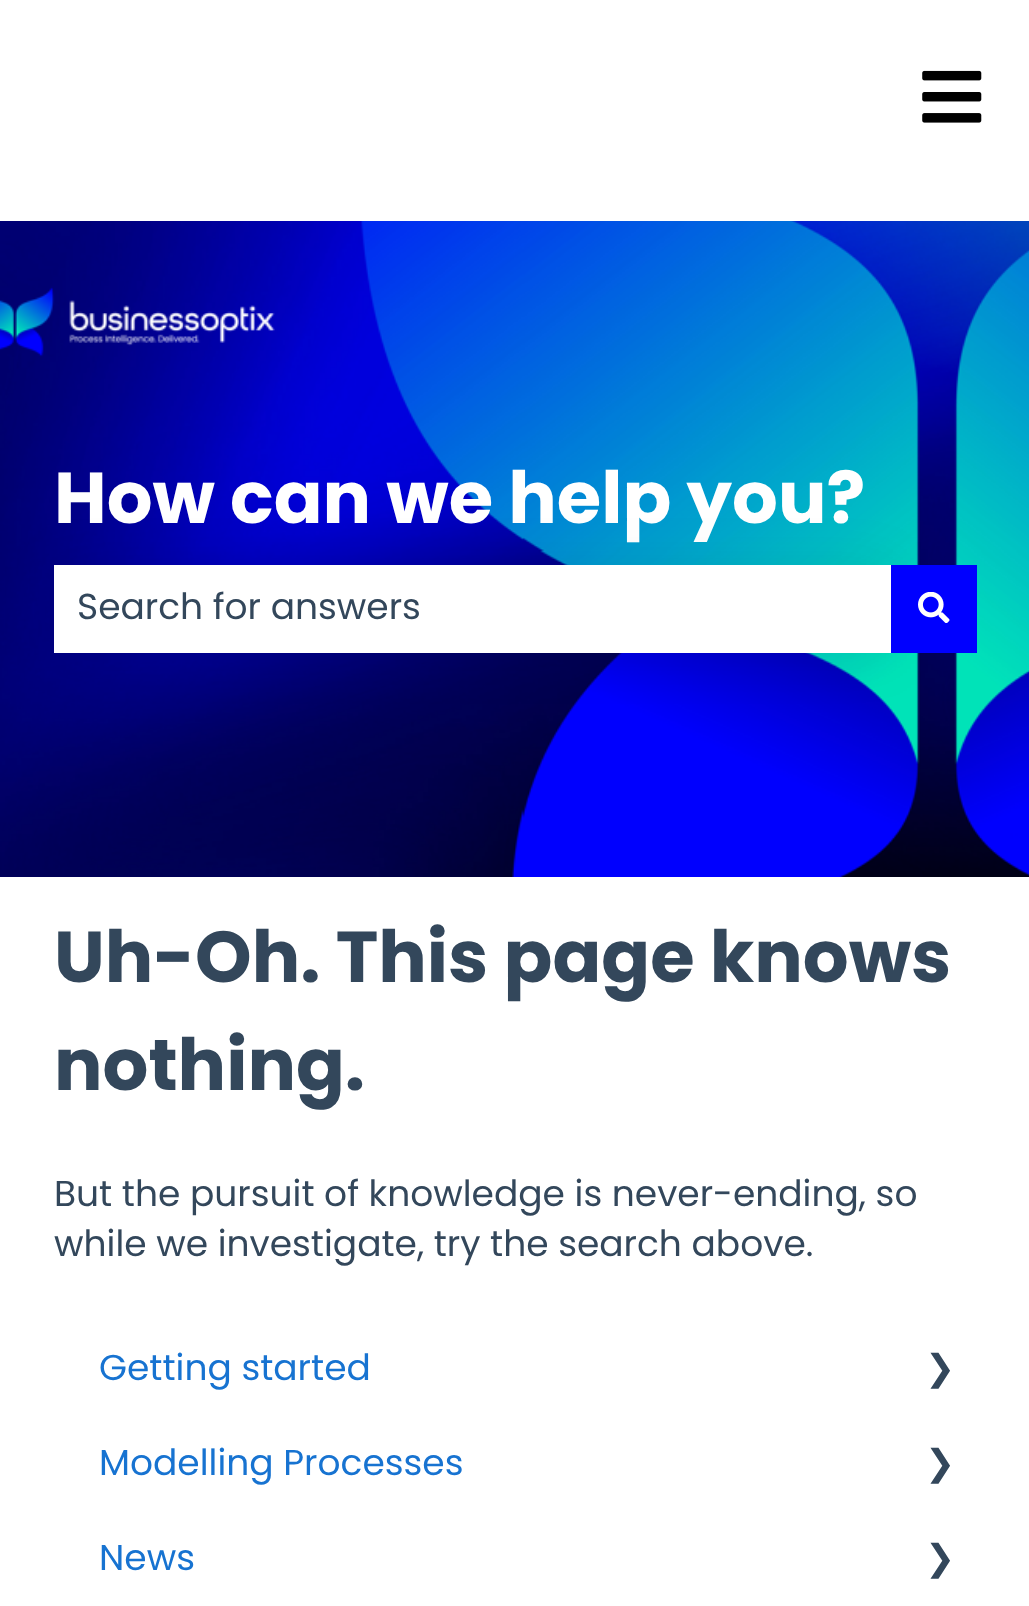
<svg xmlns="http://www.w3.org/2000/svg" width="1029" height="1606">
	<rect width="100%" height="100%" fill="#FFFFFF" />
	<image x="922" y="70" width="60" height="53" href="assets/img1.png" />
	<image x="0" y="221" width="1029" height="656" href="assets/img2.png" />
	<text x="54" y="523" font-family="Poppins" font-size="72" font-weight="700" fill="#FFFFFF">How can we help you?</text>
	<rect x="54" y="567" width="837" height="88" fill="#000000" fill-opacity="0.08" filter="blur(27px)" />
	<rect x="54" y="565" width="837" height="88" fill="#FFFFFF" />
	<text x="77" y="619" font-family="Poppins" font-size="36" fill="#33475B">Search for answers</text>
	<rect x="891" y="565" width="86" height="88" fill="#0000FF" />
	<image x="918" y="592" width="32" height="31" href="assets/img3.png" />
	<g font-family="Poppins" font-size="72" font-weight="700" fill="#33475B">
		<text x="54" y="982">Uh-Oh. This page knows</text>
		<text x="54" y="1090">nothing.</text>
	</g>
	<g font-family="Poppins" font-size="36" fill="#33475B">
		<text x="54" y="1206">But the pursuit of knowledge is never-ending, so</text>
		<text x="54" y="1256">while we investigate, try the search above.</text>
	</g>
	<text x="99" y="1380" font-family="Poppins" font-size="36" fill="#1773D1">Getting started</text>
	<text x="925" y="1380" font-family="DejaVu Sans" font-size="36" fill="#33475B">❯</text>
	<text x="99" y="1475" font-family="Poppins" font-size="36" fill="#1773D1">Modelling Processes</text>
	<text x="925" y="1475" font-family="DejaVu Sans" font-size="36" fill="#33475B">❯</text>
	<text x="99" y="1570" font-family="Poppins" font-size="36" fill="#1773D1">News</text>
	<text x="925" y="1570" font-family="DejaVu Sans" font-size="36" fill="#33475B">❯</text>
</svg>
